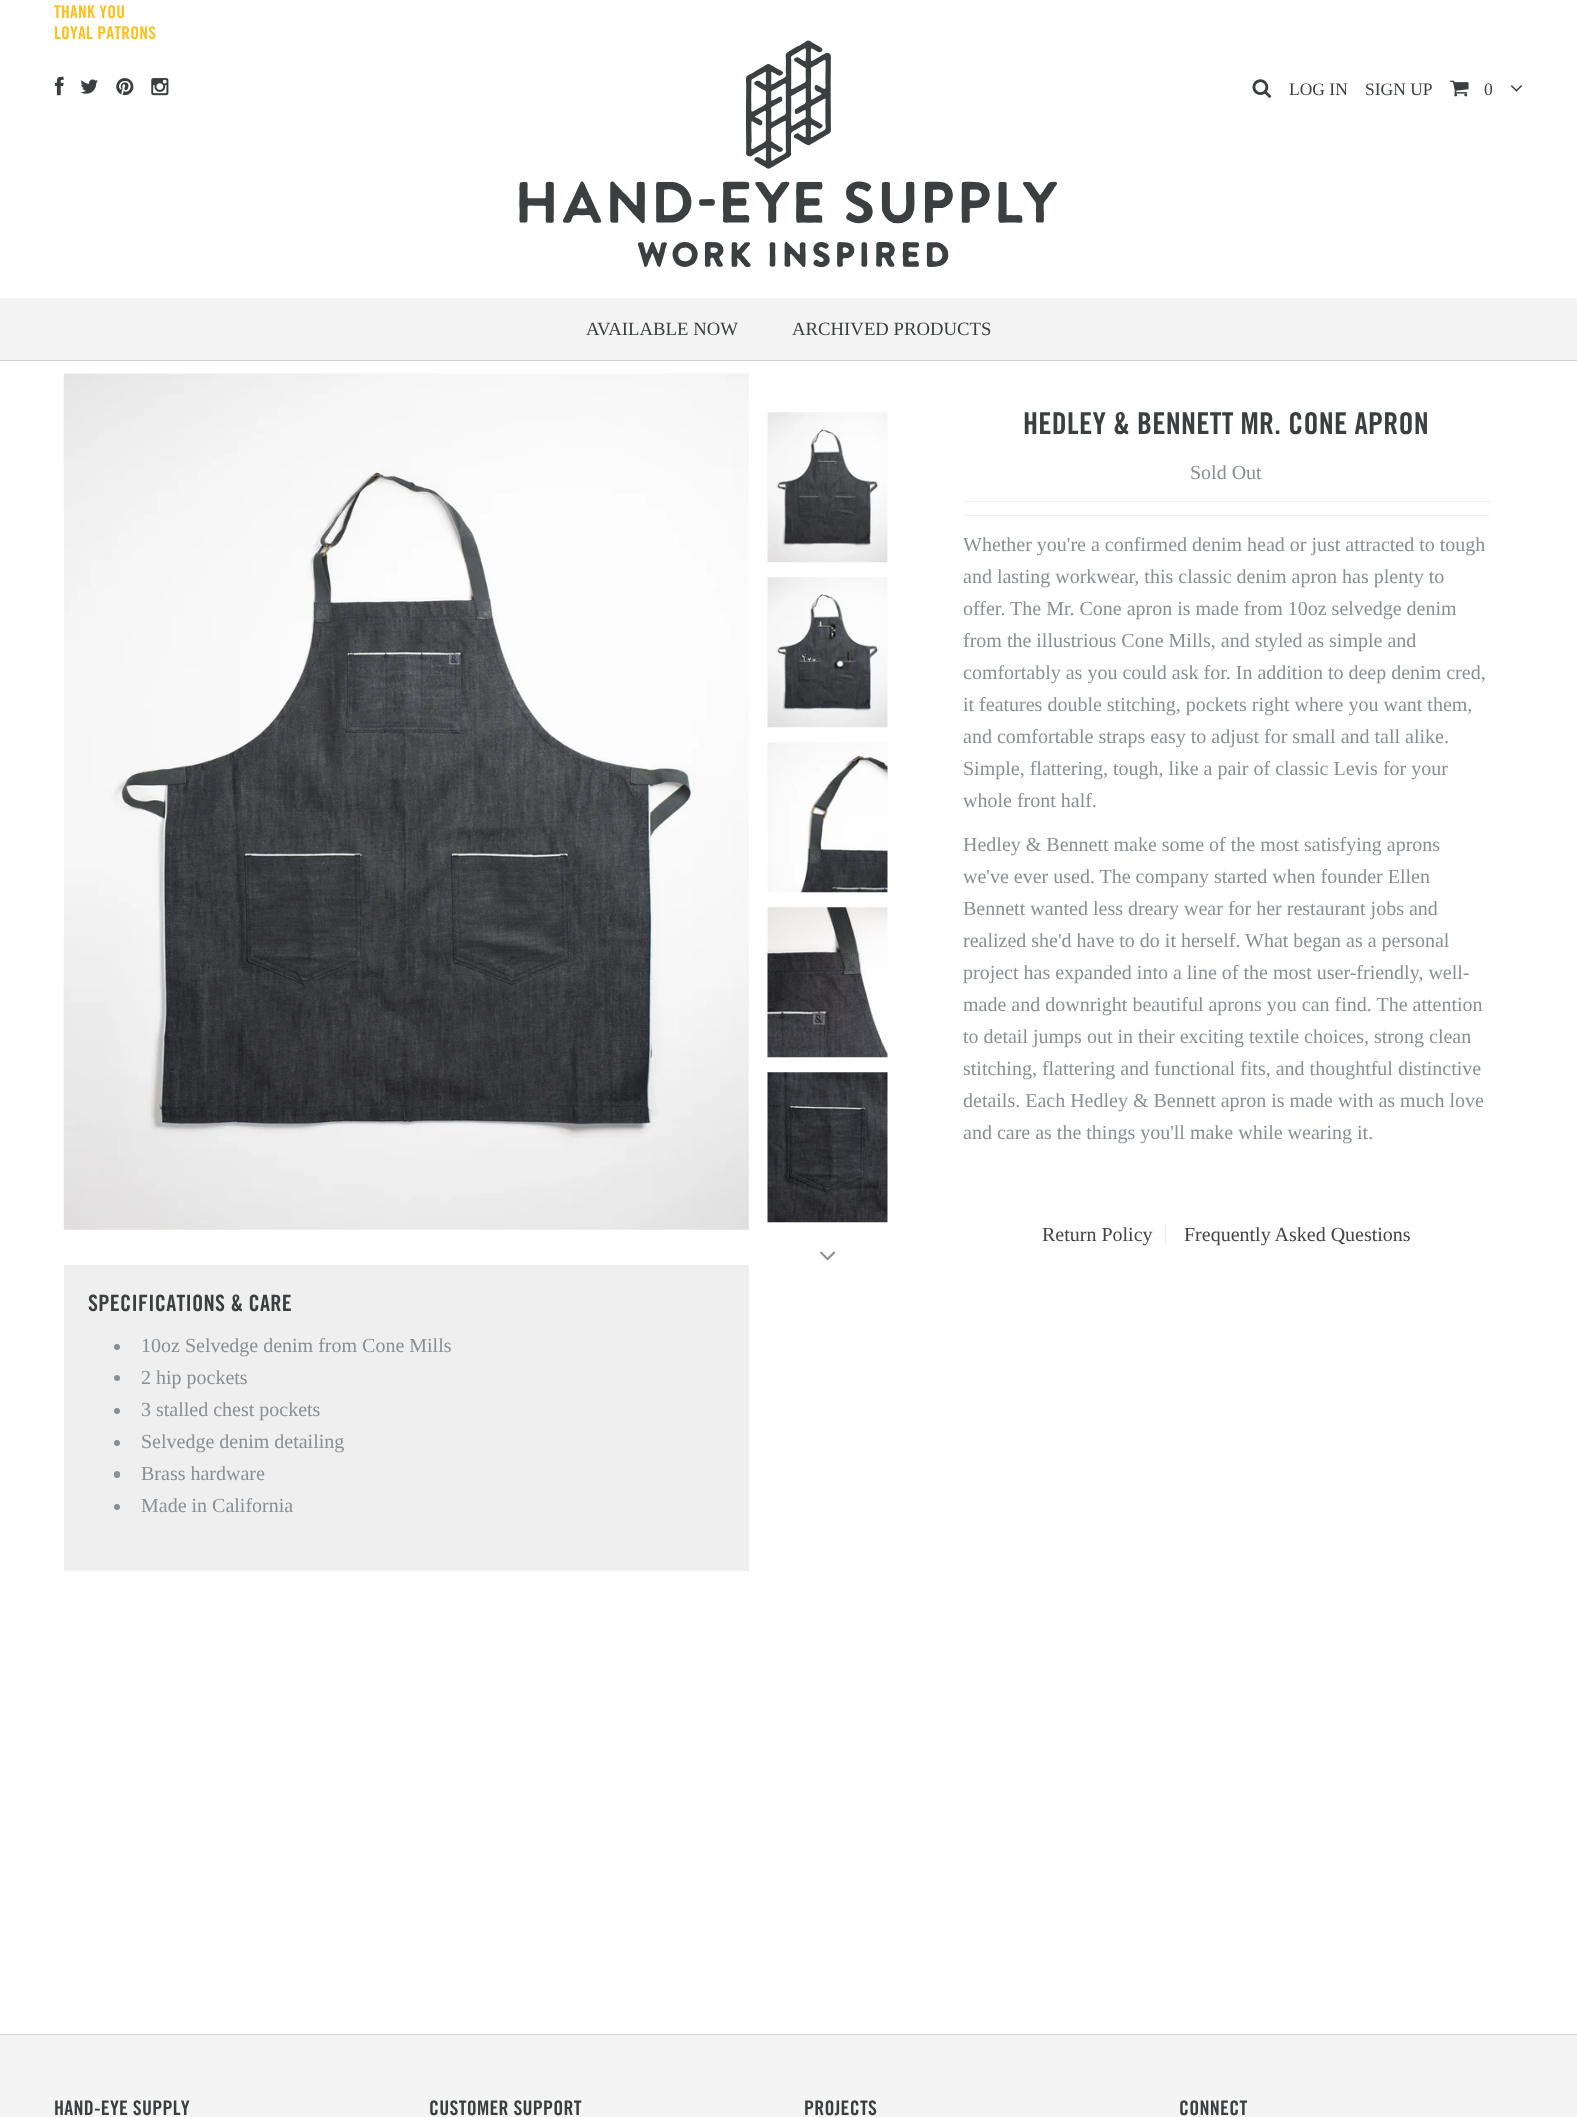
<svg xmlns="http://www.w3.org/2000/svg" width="1577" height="2117">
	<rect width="100%" height="100%" fill="#FFFFFF" />
	<g font-family="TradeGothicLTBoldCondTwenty" font-size="17.5" font-weight="700" letter-spacing="0.25" fill="#FBC121">
		<text x="54" y="18">THANK YOU</text>
		<text x="54" y="39">LOYAL PATRONS</text>
	</g>
	<image x="55" y="76" width="9" height="20" href="assets/img1.png" />
	<image x="80" y="79" width="18" height="15" href="assets/img2.png" />
	<image x="116" y="78" width="18" height="18" href="assets/img3.png" />
	<image x="151" y="78" width="18" height="18" href="assets/img4.png" />
	<text x="513" y="258" font-family="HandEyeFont" font-size="240" fill="#3B3F40">H</text>
	<image x="1252" y="79" width="20" height="19" href="assets/img5.png" />
	<g font-family="Liberation Serif" font-size="17.5" fill="#3B3F40">
		<text x="1289" y="95">LOG IN</text>
		<text x="1365" y="95">SIGN UP</text>
	</g>
	<image x="1450" y="80" width="19" height="17" href="assets/img6.png" />
	<text x="1484" y="95" font-family="Liberation Serif" font-size="17.5" fill="#3B3F40">0</text>
	<image x="1510" y="85" width="12" height="7" href="assets/img7.png" />
	<rect x="0" y="298" width="1577" height="62" fill="#F4F4F4" />
	<rect x="0" y="360" width="1577" height="1" fill="#CBCDCF" />
	<g font-family="Liberation Serif" font-size="18.75" fill="#3B3F40">
		<text x="586" y="335">AVAILABLE NOW</text>
		<text x="792" y="335">ARCHIVED PRODUCTS</text>
	</g>
	<text x="1023" y="434" font-family="TradeGothicLTBoldCondTwenty" font-size="30" font-weight="700" letter-spacing="0.25" fill="#3B3F40">HEDLEY &amp; BENNETT MR. CONE APRON</text>
	<text x="1190" y="479" font-family="Liberation Serif" font-size="20" fill="#8A8F93">Sold Out</text>
	<rect x="964" y="501" width="526" height="1" fill="#F0F0F0" />
	<rect x="964" y="515" width="526" height="1" fill="#F0F0F0" />
	<g font-family="Liberation Serif" font-size="20" fill="#8A8F93">
		<text x="963" y="551">Whether you're a confirmed denim head or just attracted to tough</text>
		<text x="963" y="583">and lasting workwear, this classic denim apron has plenty to</text>
		<text x="963" y="615">offer. The Mr. Cone apron is made from 10oz selvedge denim</text>
		<text x="963" y="647">from the illustrious Cone Mills, and styled as simple and</text>
		<text x="963" y="679">comfortably as you could ask for. In addition to deep denim cred,</text>
		<text x="963" y="711">it features double stitching, pockets right where you want them,</text>
		<text x="963" y="743">and comfortable straps easy to adjust for small and tall alike.</text>
		<text x="963" y="775">Simple, flattering, tough, like a pair of classic Levis for your</text>
		<text x="963" y="807">whole front half.</text>
		<text x="963" y="851">Hedley &amp; Bennett make some of the most satisfying aprons</text>
		<text x="963" y="883">we've ever used. The company started when founder Ellen</text>
		<text x="963" y="915">Bennett wanted less dreary wear for her restaurant jobs and</text>
		<text x="963" y="947">realized she'd have to do it herself. What began as a personal</text>
		<text x="963" y="979">project has expanded into a line of the most user-friendly, well-</text>
		<text x="963" y="1011">made and downright beautiful aprons you can find. The attention</text>
		<text x="963" y="1043">to detail jumps out in their exciting textile choices, strong clean</text>
		<text x="963" y="1075">stitching, flattering and functional fits, and thoughtful distinctive</text>
		<text x="963" y="1107">details. Each Hedley &amp; Bennett apron is made with as much love</text>
		<text x="963" y="1139">and care as the things you'll make while wearing it.</text>
	</g>
	<text x="1042" y="1241" font-family="Liberation Serif" font-size="20" fill="#444444">Return Policy</text>
	<rect x="1165" y="1223" width="1" height="21" fill="#F0F0F0" />
	<text x="1184" y="1241" font-family="Liberation Serif" font-size="20" fill="#444444">Frequently Asked Questions</text>
	<image x="63" y="373" width="686" height="857" href="assets/img8.png" />
	<image x="767" y="412" width="121" height="151" href="assets/img9.png" />
	<image x="767" y="577" width="121" height="151" href="assets/img10.png" />
	<image x="767" y="742" width="121" height="151" href="assets/img11.png" />
	<image x="767" y="907" width="121" height="151" href="assets/img12.png" />
	<image x="767" y="1072" width="121" height="151" href="assets/img13.png" />
	<image x="820" y="1251" width="16" height="10" href="assets/img14.png" />
	<rect x="64" y="1265" width="685" height="306" fill="#EFEFEF" />
	<text x="88" y="1311" font-family="TradeGothicLTBoldCondTwenty" font-size="22.5" font-weight="700" letter-spacing="0.25" fill="#3B3F40">SPECIFICATIONS &amp; CARE</text>
	<circle cx="117" cy="1347" r="3" fill="#8A8F93" />
	<text x="141" y="1352" font-family="Liberation Serif" font-size="20" fill="#8A8F93">10oz Selvedge denim from Cone Mills</text>
	<circle cx="117" cy="1378" r="3" fill="#8A8F93" />
	<text x="141" y="1384" font-family="Liberation Serif" font-size="20" fill="#8A8F93">2 hip pockets</text>
	<circle cx="117" cy="1411" r="3" fill="#8A8F93" />
	<text x="141" y="1416" font-family="Liberation Serif" font-size="20" fill="#8A8F93">3 stalled chest pockets</text>
	<circle cx="117" cy="1443" r="3" fill="#8A8F93" />
	<text x="141" y="1448" font-family="Liberation Serif" font-size="20" fill="#8A8F93">Selvedge denim detailing</text>
	<rect x="114" y="1471" width="6" height="7" rx="3" fill="#8A8F93" />
	<text x="141" y="1480" font-family="Liberation Serif" font-size="20" fill="#8A8F93">Brass hardware</text>
	<circle cx="117" cy="1507" r="3" fill="#8A8F93" />
	<text x="141" y="1512" font-family="Liberation Serif" font-size="20" fill="#8A8F93">Made in California</text>
	<rect x="0" y="2035" width="1577" height="82" fill="#F4F4F4" />
	<rect x="0" y="2034" width="1577" height="1" fill="#CBCDCF" />
	<g font-family="TradeGothicLTBoldCondTwenty" font-size="20" font-weight="700" letter-spacing="0.25" fill="#3B3F40">
		<text x="54" y="2115">HAND-EYE SUPPLY</text>
		<text x="429" y="2115">CUSTOMER SUPPORT</text>
		<text x="804" y="2115">PROJECTS</text>
		<text x="1179" y="2115">CONNECT</text>
	</g>
</svg>
